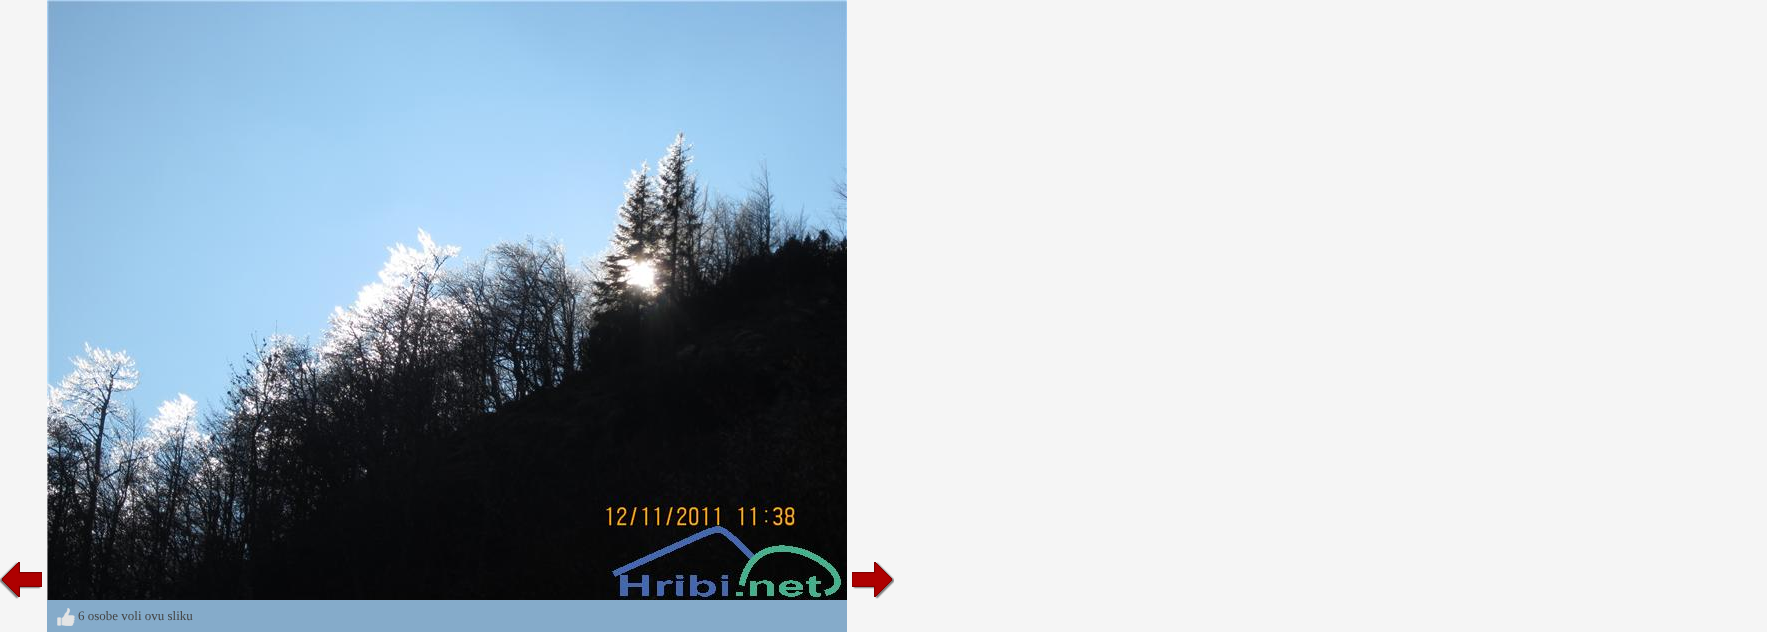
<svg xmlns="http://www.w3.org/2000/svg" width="1767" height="632">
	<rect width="100%" height="100%" fill="#F5F5F5" />
	<image x="0" y="562" width="42" height="37" href="assets/img1.png" />
	<image x="852" y="562" width="42" height="37" href="assets/img2.png" />
	<rect x="47" y="600" width="800" height="32" fill="#85ABCA" />
	<image x="47" y="0" width="800" height="600" href="assets/img3.png" />
	<image x="57" y="608" width="18" height="18" href="assets/img4.png" />
	<text x="78" y="620" font-family="Liberation Serif" font-size="13" fill="#444444">6 osobe voli ovu sliku</text>
</svg>
